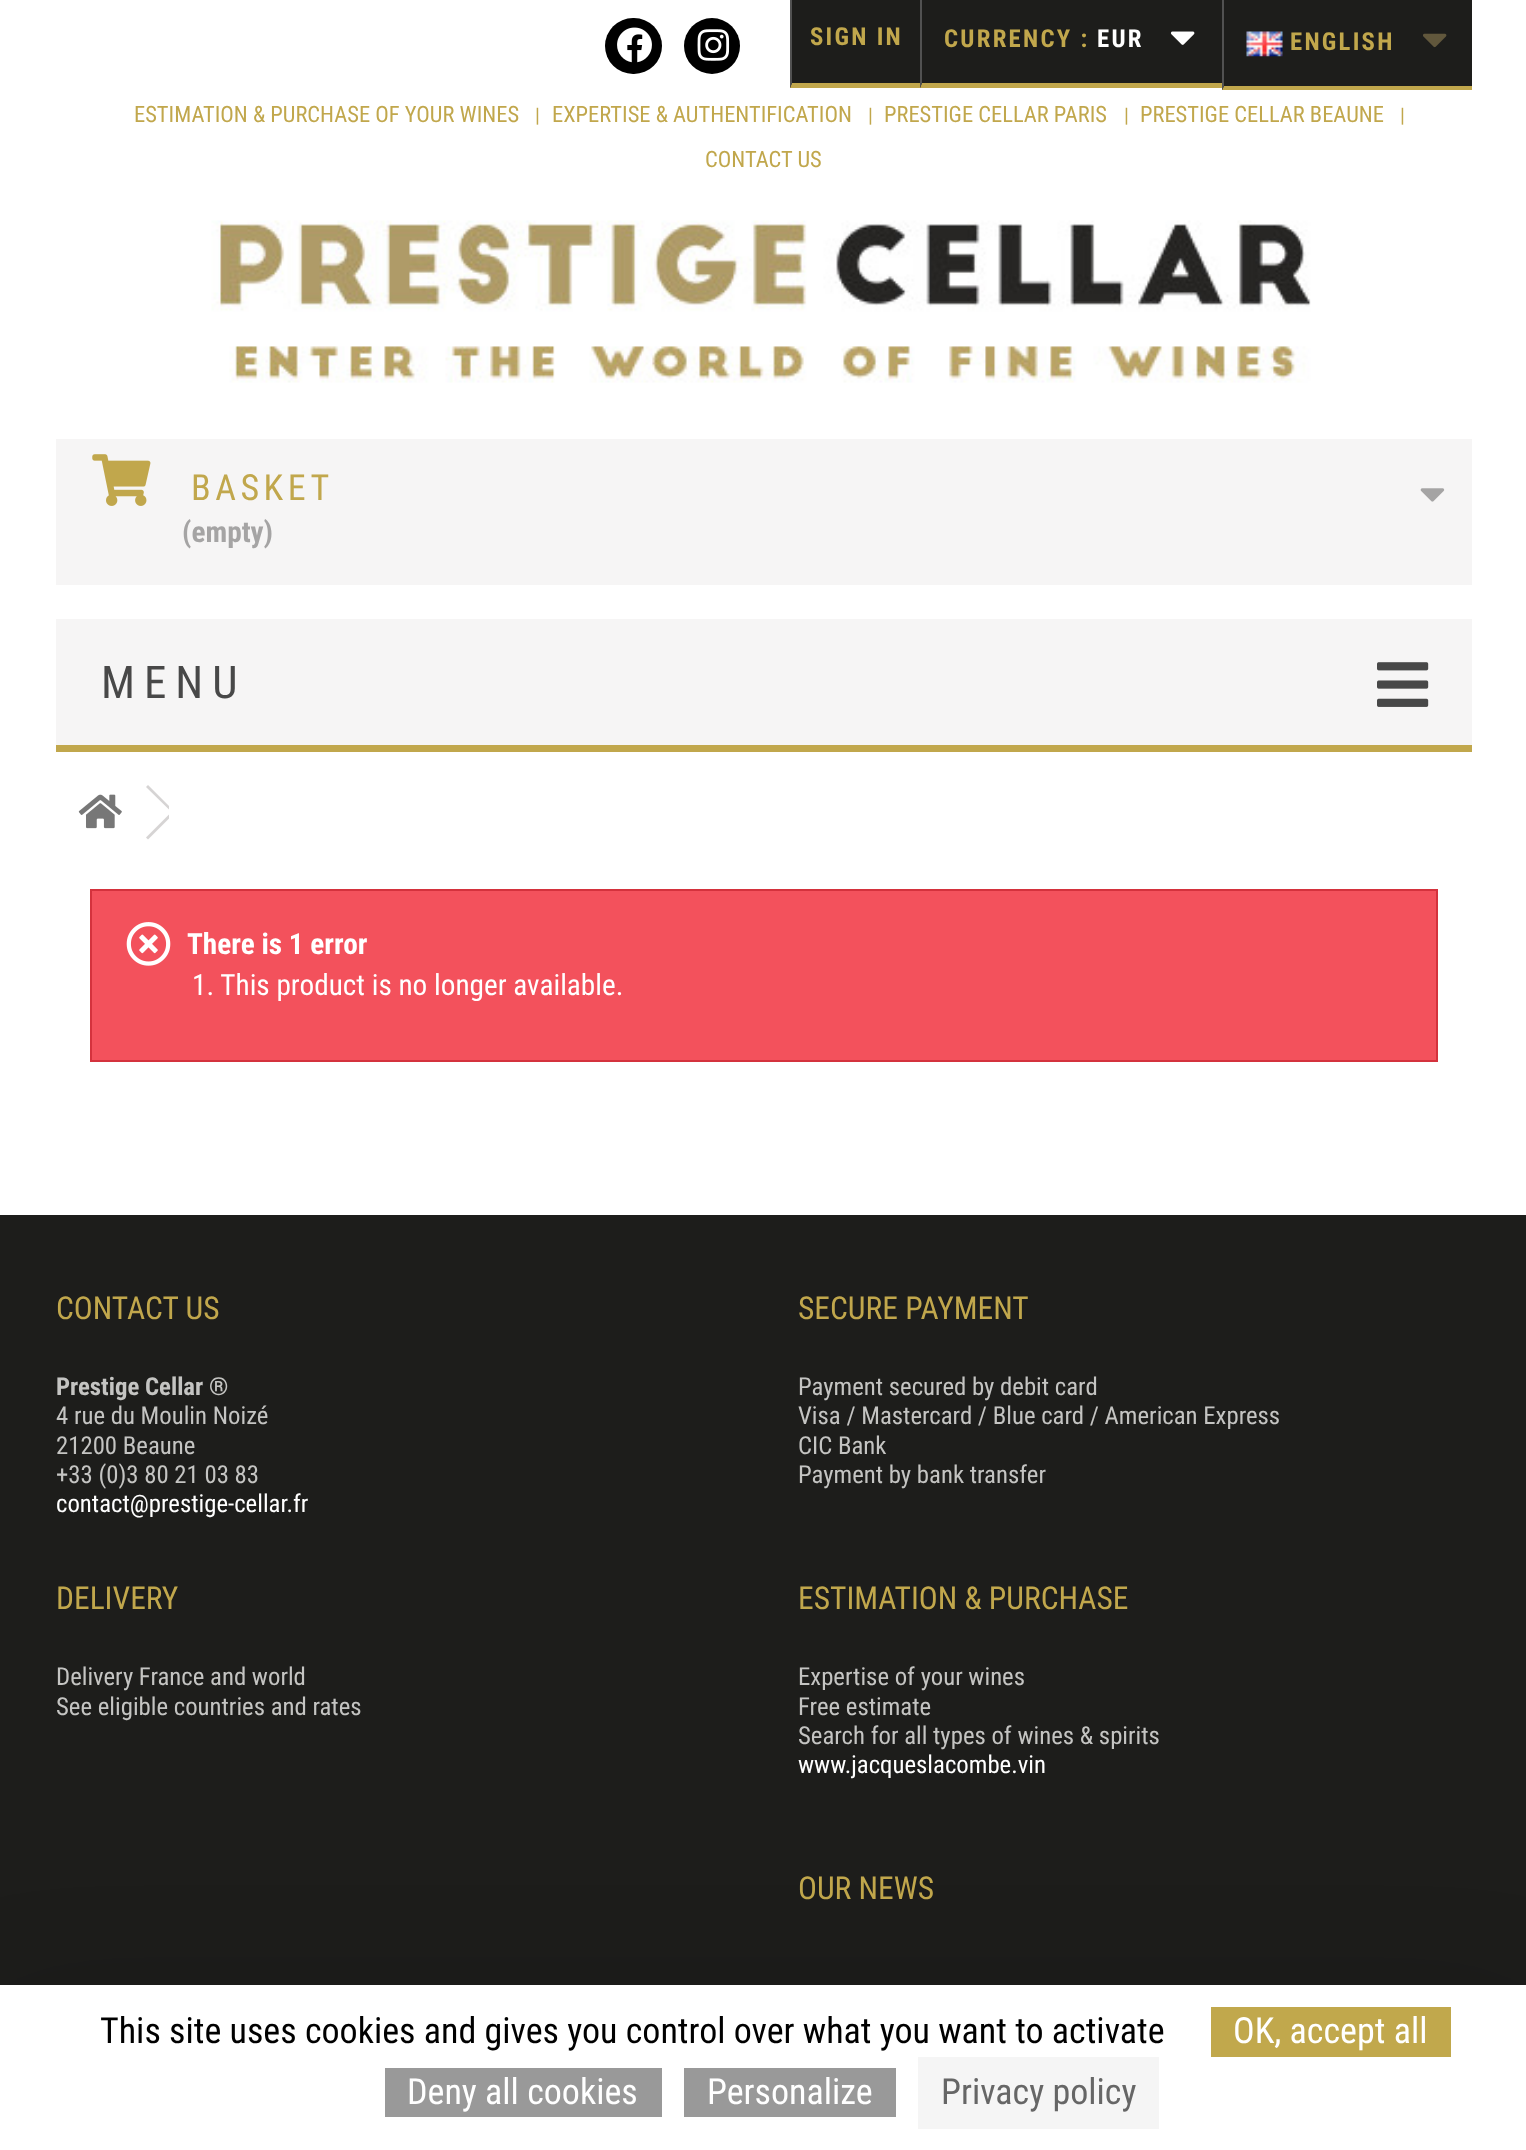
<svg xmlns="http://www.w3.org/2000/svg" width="1526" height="2150">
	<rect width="100%" height="100%" fill="#FFFFFF" />
	<rect x="605" y="18" width="57" height="56" rx="28" fill="#000000" />
	<image x="617" y="27" width="35" height="36" href="assets/img1.png" />
	<circle cx="712" cy="46" r="28" fill="#000000" />
	<image x="697" y="29" width="33" height="32" href="assets/img2.png" />
	<rect x="790" y="0" width="130" height="88" fill="#1D1D1B" />
	<path d="M927 88H790L792 83H925Z" fill="#C1A74C" />
	<path d="M790 88V0H792V83Z" fill="#515151" />
	<text x="810" y="45" font-family="Roboto Condensed" font-size="24.75" font-weight="700" letter-spacing="2.25" fill="#C1A74C">SIGN IN</text>
	<rect x="920" y="0" width="302" height="88" fill="#1D1D1B" />
	<path d="M1222 88H920L922 83H1222Z" fill="#C1A74C" />
	<path d="M920 88V0H922V83Z" fill="#515151" />
	<text x="944" y="47" font-family="Roboto Condensed" font-size="24.75" font-weight="700" letter-spacing="2.25" fill="#C1A74C">CURRENCY :</text>
	<text x="1097" y="47" font-family="Roboto Condensed" font-size="24.75" font-weight="700" letter-spacing="2.25" fill="#FFFFFF">EUR</text>
	<image x="1170" y="31" width="25" height="14" href="assets/img3.png" />
	<rect x="1222" y="0" width="250" height="90" fill="#1D1D1B" />
	<path d="M1472 90H1222L1224 86H1472Z" fill="#C1A74C" />
	<path d="M1222 90V0H1224V86Z" fill="#515151" />
	<image x="1246" y="31" width="37" height="26" href="assets/img4.png" />
	<text x="1290" y="50" font-family="Roboto Condensed" font-size="24.75" font-weight="700" letter-spacing="2.25" fill="#C1A74C">ENGLISH</text>
	<image x="1423" y="33" width="24" height="15" href="assets/img5.png" />
	<text x="134" y="122" font-family="Roboto Condensed" font-size="22.5" fill="#C1A74C">ESTIMATION &amp; PURCHASE OF YOUR WINES</text>
	<text x="535" y="122" font-family="Roboto Condensed" font-size="20" fill="#C1A74C">|</text>
	<text x="552" y="122" font-family="Roboto Condensed" font-size="22.5" fill="#C1A74C">EXPERTISE &amp; AUTHENTIFICATION</text>
	<text x="868" y="122" font-family="Roboto Condensed" font-size="20" fill="#C1A74C">|</text>
	<text x="884" y="122" font-family="Roboto Condensed" font-size="22.5" fill="#C1A74C">PRESTIGE CELLAR PARIS</text>
	<text x="1124" y="122" font-family="Roboto Condensed" font-size="20" fill="#C1A74C">|</text>
	<text x="1140" y="122" font-family="Roboto Condensed" font-size="22.5" fill="#C1A74C">PRESTIGE CELLAR BEAUNE</text>
	<text x="1400" y="122" font-family="Roboto Condensed" font-size="20" fill="#C1A74C">|</text>
	<text x="705" y="167" font-family="Roboto Condensed" font-size="22.5" fill="#C1A74C">CONTACT US</text>
	<image x="211" y="220" width="1100" height="163" href="assets/img6.png" />
	<rect x="56" y="439" width="1416" height="146" fill="#F6F5F5" />
	<image x="92" y="454" width="59" height="52" href="assets/img7.png" />
	<text x="191" y="500" font-family="Roboto Condensed" font-size="36" letter-spacing="4.5" fill="#C1A74C">BASKET</text>
	<image x="1420" y="488" width="25" height="14" href="assets/img8.png" />
	<text x="182" y="542" font-family="Roboto Condensed" font-size="29.25" font-weight="700" fill="#A5A4A4">(empty)</text>
	<rect x="56" y="619" width="1416" height="126" fill="#F6F5F5" />
	<rect x="56" y="745" width="1416" height="7" fill="#C1A74C" />
	<text x="101" y="698" font-family="Roboto Condensed" font-size="45" letter-spacing="9" fill="#484848">MENU</text>
	<image x="1377" y="662" width="52" height="45" href="assets/img9.png" />
	<image x="78" y="794" width="44" height="35" href="assets/img10.png" />
	<path d="M148 785L169 806V809.5L146 787ZM169 814.5V818.5L148 839.5L146 837.5Z" fill="#D6D4D4" />
	<rect x="91" y="890" width="1346" height="171" fill="#F3515C" stroke="#D4323D" stroke-width="2" />
	<image x="126" y="922" width="45" height="44" href="assets/img11.png" />
	<text x="187" y="954" font-family="Roboto Condensed" font-size="29.25" font-weight="700" fill="#FFFFFF">There is 1 error</text>
	<text x="192" y="995" font-family="Roboto Condensed" font-size="29.25" fill="#FFFFFF">1. This product is no longer available.</text>
	<rect x="0" y="1215" width="1526" height="770" fill="#1D1D1B" />
	<text x="56" y="1319" font-family="Roboto Condensed" font-size="31.5" fill="#C1A74C">CONTACT US</text>
	<text x="56" y="1395" font-family="Roboto Condensed" font-size="24.75" font-weight="700" fill="#C4C4C2">Prestige Cellar ®</text>
	<g font-family="Roboto Condensed" font-size="24.75" fill="#C4C4C2">
		<text x="56" y="1424">4 rue du Moulin Noizé</text>
		<text x="56" y="1454">21200 Beaune</text>
		<text x="56" y="1483">+33 (0)3 80 21 03 83</text>
	</g>
	<text x="56" y="1512" font-family="Roboto Condensed" font-size="24.75" fill="#FFFFFF">contact@prestige-cellar.fr</text>
	<text x="798" y="1319" font-family="Roboto Condensed" font-size="31.5" fill="#C1A74C">SECURE PAYMENT</text>
	<g font-family="Roboto Condensed" font-size="24.75" fill="#C4C4C2">
		<text x="798" y="1395">Payment secured by debit card</text>
		<text x="798" y="1424">Visa / Mastercard / Blue card / American Express</text>
		<text x="798" y="1454">CIC Bank</text>
		<text x="798" y="1483">Payment by bank transfer</text>
	</g>
	<text x="56" y="1609" font-family="Roboto Condensed" font-size="31.5" fill="#C1A74C">DELIVERY</text>
	<g font-family="Roboto Condensed" font-size="24.75" fill="#C4C4C2">
		<text x="56" y="1685">Delivery France and world</text>
		<text x="56" y="1715">See eligible countries and rates</text>
	</g>
	<text x="798" y="1609" font-family="Roboto Condensed" font-size="31.5" fill="#C1A74C">ESTIMATION &amp; PURCHASE</text>
	<g font-family="Roboto Condensed" font-size="24.75" fill="#C4C4C2">
		<text x="798" y="1685">Expertise of your wines</text>
		<text x="798" y="1715">Free estimate</text>
		<text x="798" y="1744">Search for all types of wines &amp; spirits</text>
	</g>
	<text x="798" y="1773" font-family="Roboto Condensed" font-size="24.75" fill="#FFFFFF">www.jacqueslacombe.vin</text>
	<text x="798" y="1899" font-family="Roboto Condensed" font-size="31.5" fill="#C1A74C">OUR NEWS</text>
	<rect x="0" y="2030" width="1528" height="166" fill="#000000" fill-opacity="0.25" filter="blur(67.5px)" />
	<rect x="0" y="1985" width="1526" height="165" fill="#FFFFFF" />
	<text x="100" y="2043" font-family="Roboto Condensed" font-size="36" fill="#000000">This site uses cookies and gives you control over what you want to activate</text>
	<rect x="1211" y="2007" width="240" height="50" fill="#C1A84C" />
	<text x="1233" y="2043" font-family="Roboto Condensed" font-size="36" fill="#FFFFFF">OK, accept all</text>
	<rect x="385" y="2068" width="277" height="49" fill="#999999" />
	<text x="407" y="2104" font-family="Roboto Condensed" font-size="36" fill="#FFFFFF">Deny all cookies</text>
	<rect x="684" y="2068" width="212" height="49" fill="#999999" />
	<text x="707" y="2104" font-family="Roboto Condensed" font-size="36" fill="#FFFFFF">Personalize</text>
	<rect x="918" y="2057" width="241" height="72" fill="#F5F5F5" />
	<text x="941" y="2104" font-family="Roboto Condensed" font-size="36" fill="#666666">Privacy policy</text>
</svg>
